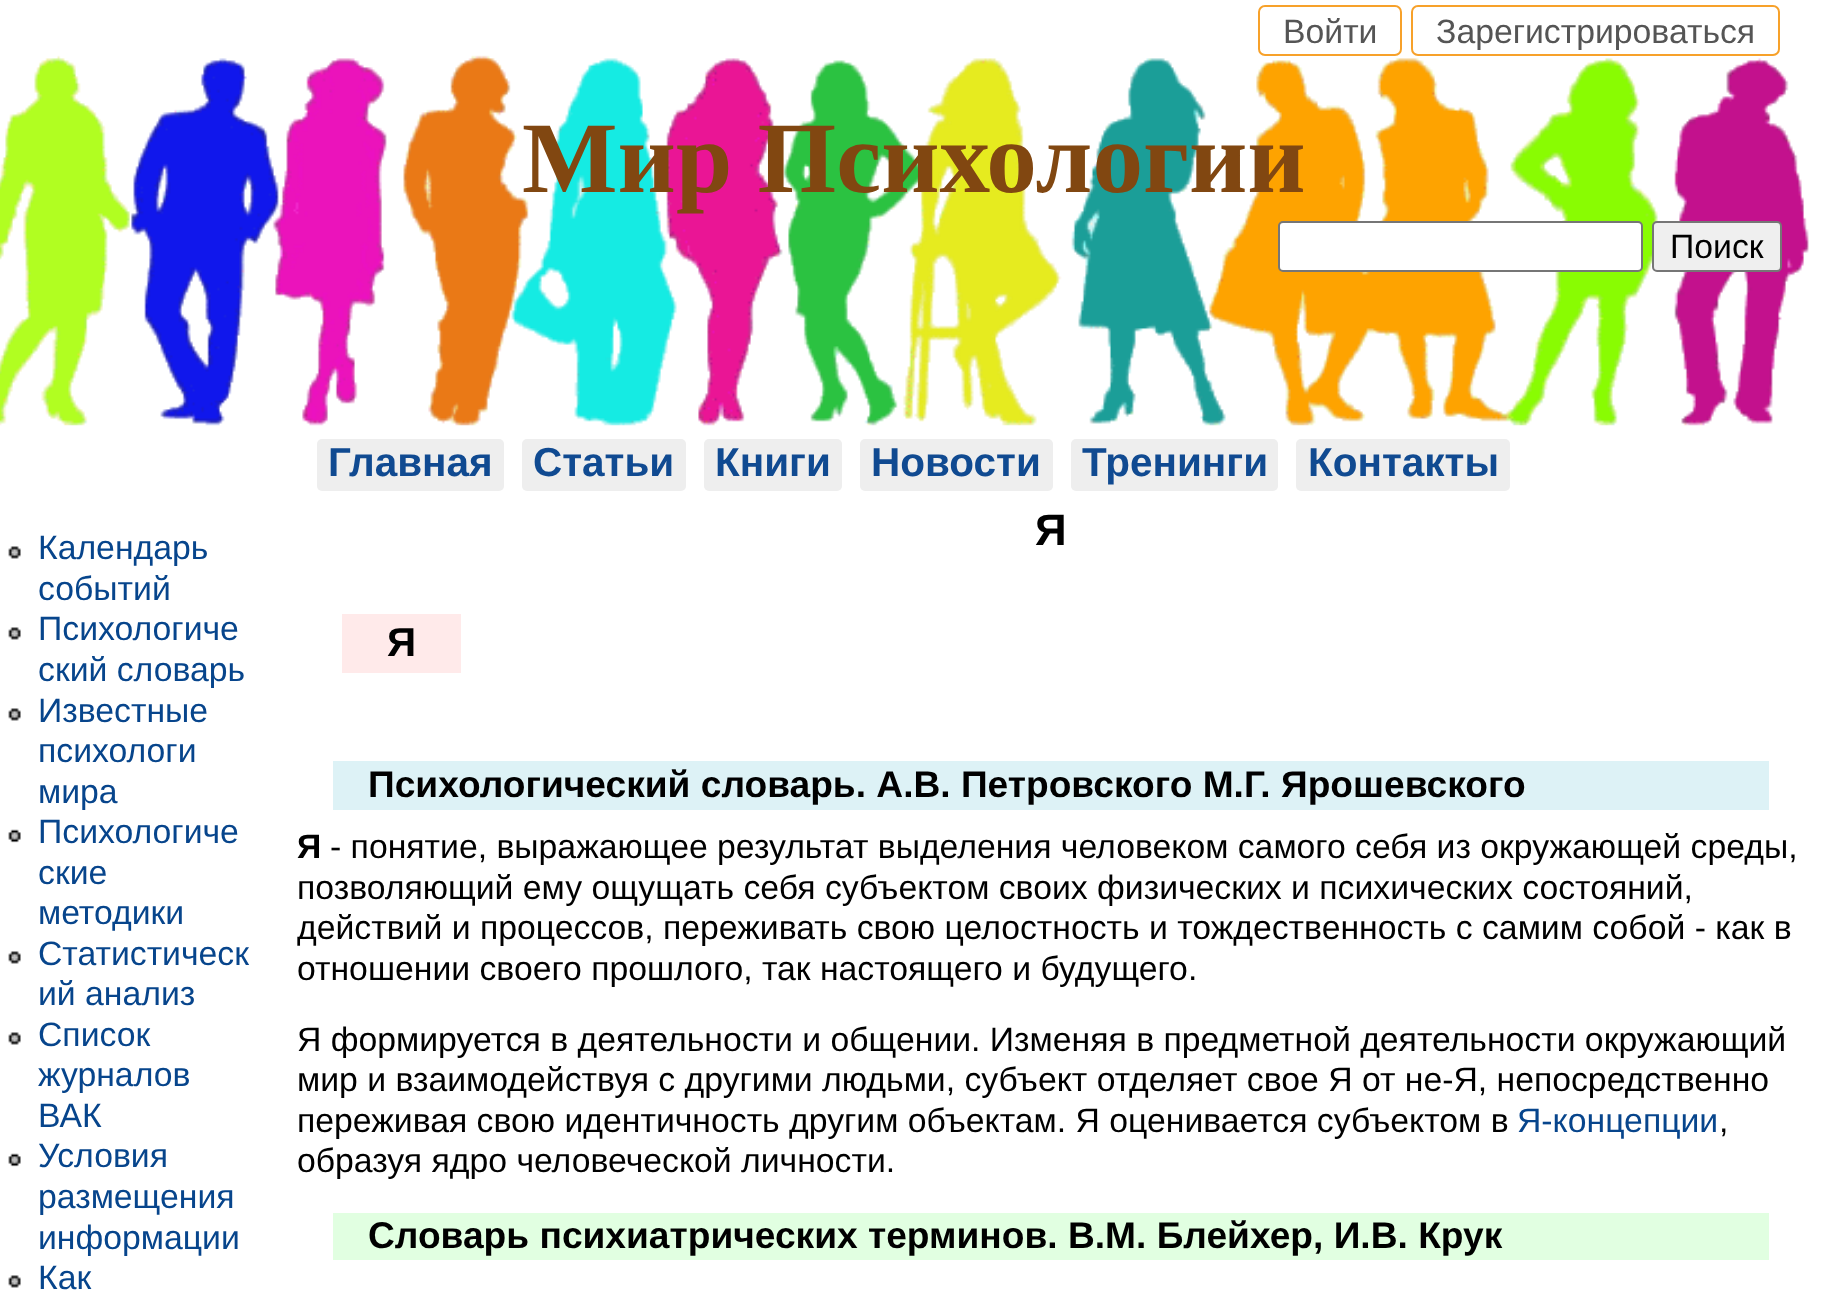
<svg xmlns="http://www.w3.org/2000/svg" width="1827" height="1300">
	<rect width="100%" height="100%" fill="#FFFFFF" />
	<image x="0" y="55" width="1809" height="371" href="assets/img1.png" />
	<rect x="1259" y="6" width="142" height="49" rx="6" fill="none" stroke="#F7A12A" stroke-width="2" />
	<text x="1283" y="43" font-family="Liberation Sans" font-size="33.75" fill="#555555">Войти</text>
	<rect x="1412" y="6" width="367" height="49" rx="6" fill="none" stroke="#F7A12A" stroke-width="2" />
	<text x="1436" y="43" font-family="Liberation Sans" font-size="33.75" fill="#555555">Зарегистрироваться</text>
	<text x="522" y="192" font-family="Liberation Serif" font-size="101.25" font-weight="700" fill="#814711">Мир Психологии</text>
	<rect x="1279" y="222" width="363" height="49" rx="4" fill="#FFFFFF" stroke="#767676" stroke-width="2" />
	<rect x="1653" y="222" width="128" height="49" rx="4" fill="#EFEFEF" stroke="#767676" stroke-width="2" />
	<text x="1670" y="258" font-family="Liberation Sans" font-size="33.75" fill="#000000">Поиск</text>
	<rect x="317" y="439" width="187" height="52" rx="5" fill="#EEEEEE" />
	<text x="328" y="476" font-family="Liberation Sans" font-size="40.5" font-weight="700" fill="#104A91">Главная</text>
	<rect x="522" y="439" width="164" height="52" rx="5" fill="#EEEEEE" />
	<text x="533" y="476" font-family="Liberation Sans" font-size="40.5" font-weight="700" fill="#104A91">Статьи</text>
	<rect x="704" y="439" width="138" height="52" rx="5" fill="#EEEEEE" />
	<text x="715" y="476" font-family="Liberation Sans" font-size="40.5" font-weight="700" fill="#104A91">Книги</text>
	<rect x="860" y="439" width="193" height="52" rx="5" fill="#EEEEEE" />
	<text x="871" y="476" font-family="Liberation Sans" font-size="40.5" font-weight="700" fill="#104A91">Новости</text>
	<rect x="1071" y="439" width="207" height="52" rx="5" fill="#EEEEEE" />
	<text x="1082" y="476" font-family="Liberation Sans" font-size="40.5" font-weight="700" fill="#104A91">Тренинги</text>
	<rect x="1296" y="439" width="214" height="52" rx="5" fill="#EEEEEE" />
	<text x="1308" y="476" font-family="Liberation Sans" font-size="40.5" font-weight="700" fill="#104A91">Контакты</text>
	<image x="8" y="546" width="13" height="13" href="assets/img2.png" />
	<g font-family="Liberation Sans" font-size="33.75" fill="#07458C">
		<text x="38" y="559">Календарь</text>
		<text x="38" y="600">событий</text>
	</g>
	<image x="8" y="627" width="13" height="13" href="assets/img2.png" />
	<g font-family="Liberation Sans" font-size="33.75" fill="#07458C">
		<text x="38" y="640">Психологиче</text>
		<text x="38" y="681">ский словарь</text>
	</g>
	<image x="8" y="708" width="13" height="13" href="assets/img2.png" />
	<g font-family="Liberation Sans" font-size="33.75" fill="#07458C">
		<text x="38" y="722">Известные</text>
		<text x="38" y="762">психологи</text>
		<text x="38" y="803">мира</text>
	</g>
	<image x="8" y="829" width="13" height="14" href="assets/img3.png" />
	<g font-family="Liberation Sans" font-size="33.75" fill="#07458C">
		<text x="38" y="843">Психологиче</text>
		<text x="38" y="884">ские</text>
		<text x="38" y="924">методики</text>
	</g>
	<image x="8" y="951" width="13" height="13" href="assets/img2.png" />
	<g font-family="Liberation Sans" font-size="33.75" fill="#07458C">
		<text x="38" y="965">Статистическ</text>
		<text x="38" y="1005">ий анализ</text>
	</g>
	<image x="8" y="1032" width="13" height="13" href="assets/img2.png" />
	<g font-family="Liberation Sans" font-size="33.75" fill="#07458C">
		<text x="38" y="1046">Список</text>
		<text x="38" y="1086">журналов</text>
		<text x="38" y="1127">ВАК</text>
	</g>
	<image x="8" y="1153" width="13" height="14" href="assets/img3.png" />
	<g font-family="Liberation Sans" font-size="33.75" fill="#07458C">
		<text x="38" y="1167">Условия</text>
		<text x="38" y="1208">размещения</text>
		<text x="38" y="1249">информации</text>
	</g>
	<image x="8" y="1275" width="13" height="13" href="assets/img2.png" />
	<text x="38" y="1289" font-family="Liberation Sans" font-size="33.75" fill="#07458C">Как</text>
	<text x="1035" y="545" font-family="Liberation Sans" font-size="44" font-weight="700" fill="#000000">Я</text>
	<rect x="342" y="614" width="119" height="59" fill="#FFEAEA" />
	<text x="387" y="656" font-family="Liberation Sans" font-size="40.5" font-weight="700" fill="#000000">Я</text>
	<rect x="333" y="761" width="1436" height="49" fill="#DDF2F6" />
	<text x="368" y="797" font-family="Liberation Sans" font-size="37.15" font-weight="700" fill="#000000">Психологический словарь. А.В. Петровского М.Г. Ярошевского</text>
	<text x="297" y="858" font-family="Liberation Sans" font-size="33.75" font-weight="700" fill="#000000">Я</text>
	<g font-family="Liberation Sans" font-size="33.75" fill="#000000">
		<text x="330" y="858">- понятие, выражающее результат выделения человеком самого себя из окружающей среды,</text>
		<text x="297" y="899">позволяющий ему ощущать себя субъектом своих физических и психических состояний,</text>
		<text x="297" y="939">действий и процессов, переживать свою целостность и тождественность с самим собой - как в</text>
		<text x="297" y="980">отношении своего прошлого, так настоящего и будущего.</text>
		<text x="297" y="1051">Я формируется в деятельности и общении. Изменяя в предметной деятельности окружающий</text>
		<text x="297" y="1091">мир и взаимодействуя с другими людьми, субъект отделяет свое Я от не-Я, непосредственно</text>
		<text x="297" y="1132">переживая свою идентичность другим объектам. Я оценивается субъектом в</text>
	</g>
	<text x="1517" y="1132" font-family="Liberation Sans" font-size="33.75" fill="#07458C">Я-концепции</text>
	<g font-family="Liberation Sans" font-size="33.75" fill="#000000">
		<text x="1719" y="1132">,</text>
		<text x="297" y="1172">образуя ядро человеческой личности.</text>
	</g>
	<rect x="333" y="1213" width="1436" height="47" fill="#E1FFE1" />
	<text x="368" y="1248" font-family="Liberation Sans" font-size="37.15" font-weight="700" fill="#000000">Словарь психиатрических терминов. В.М. Блейхер, И.В. Крук</text>
</svg>
